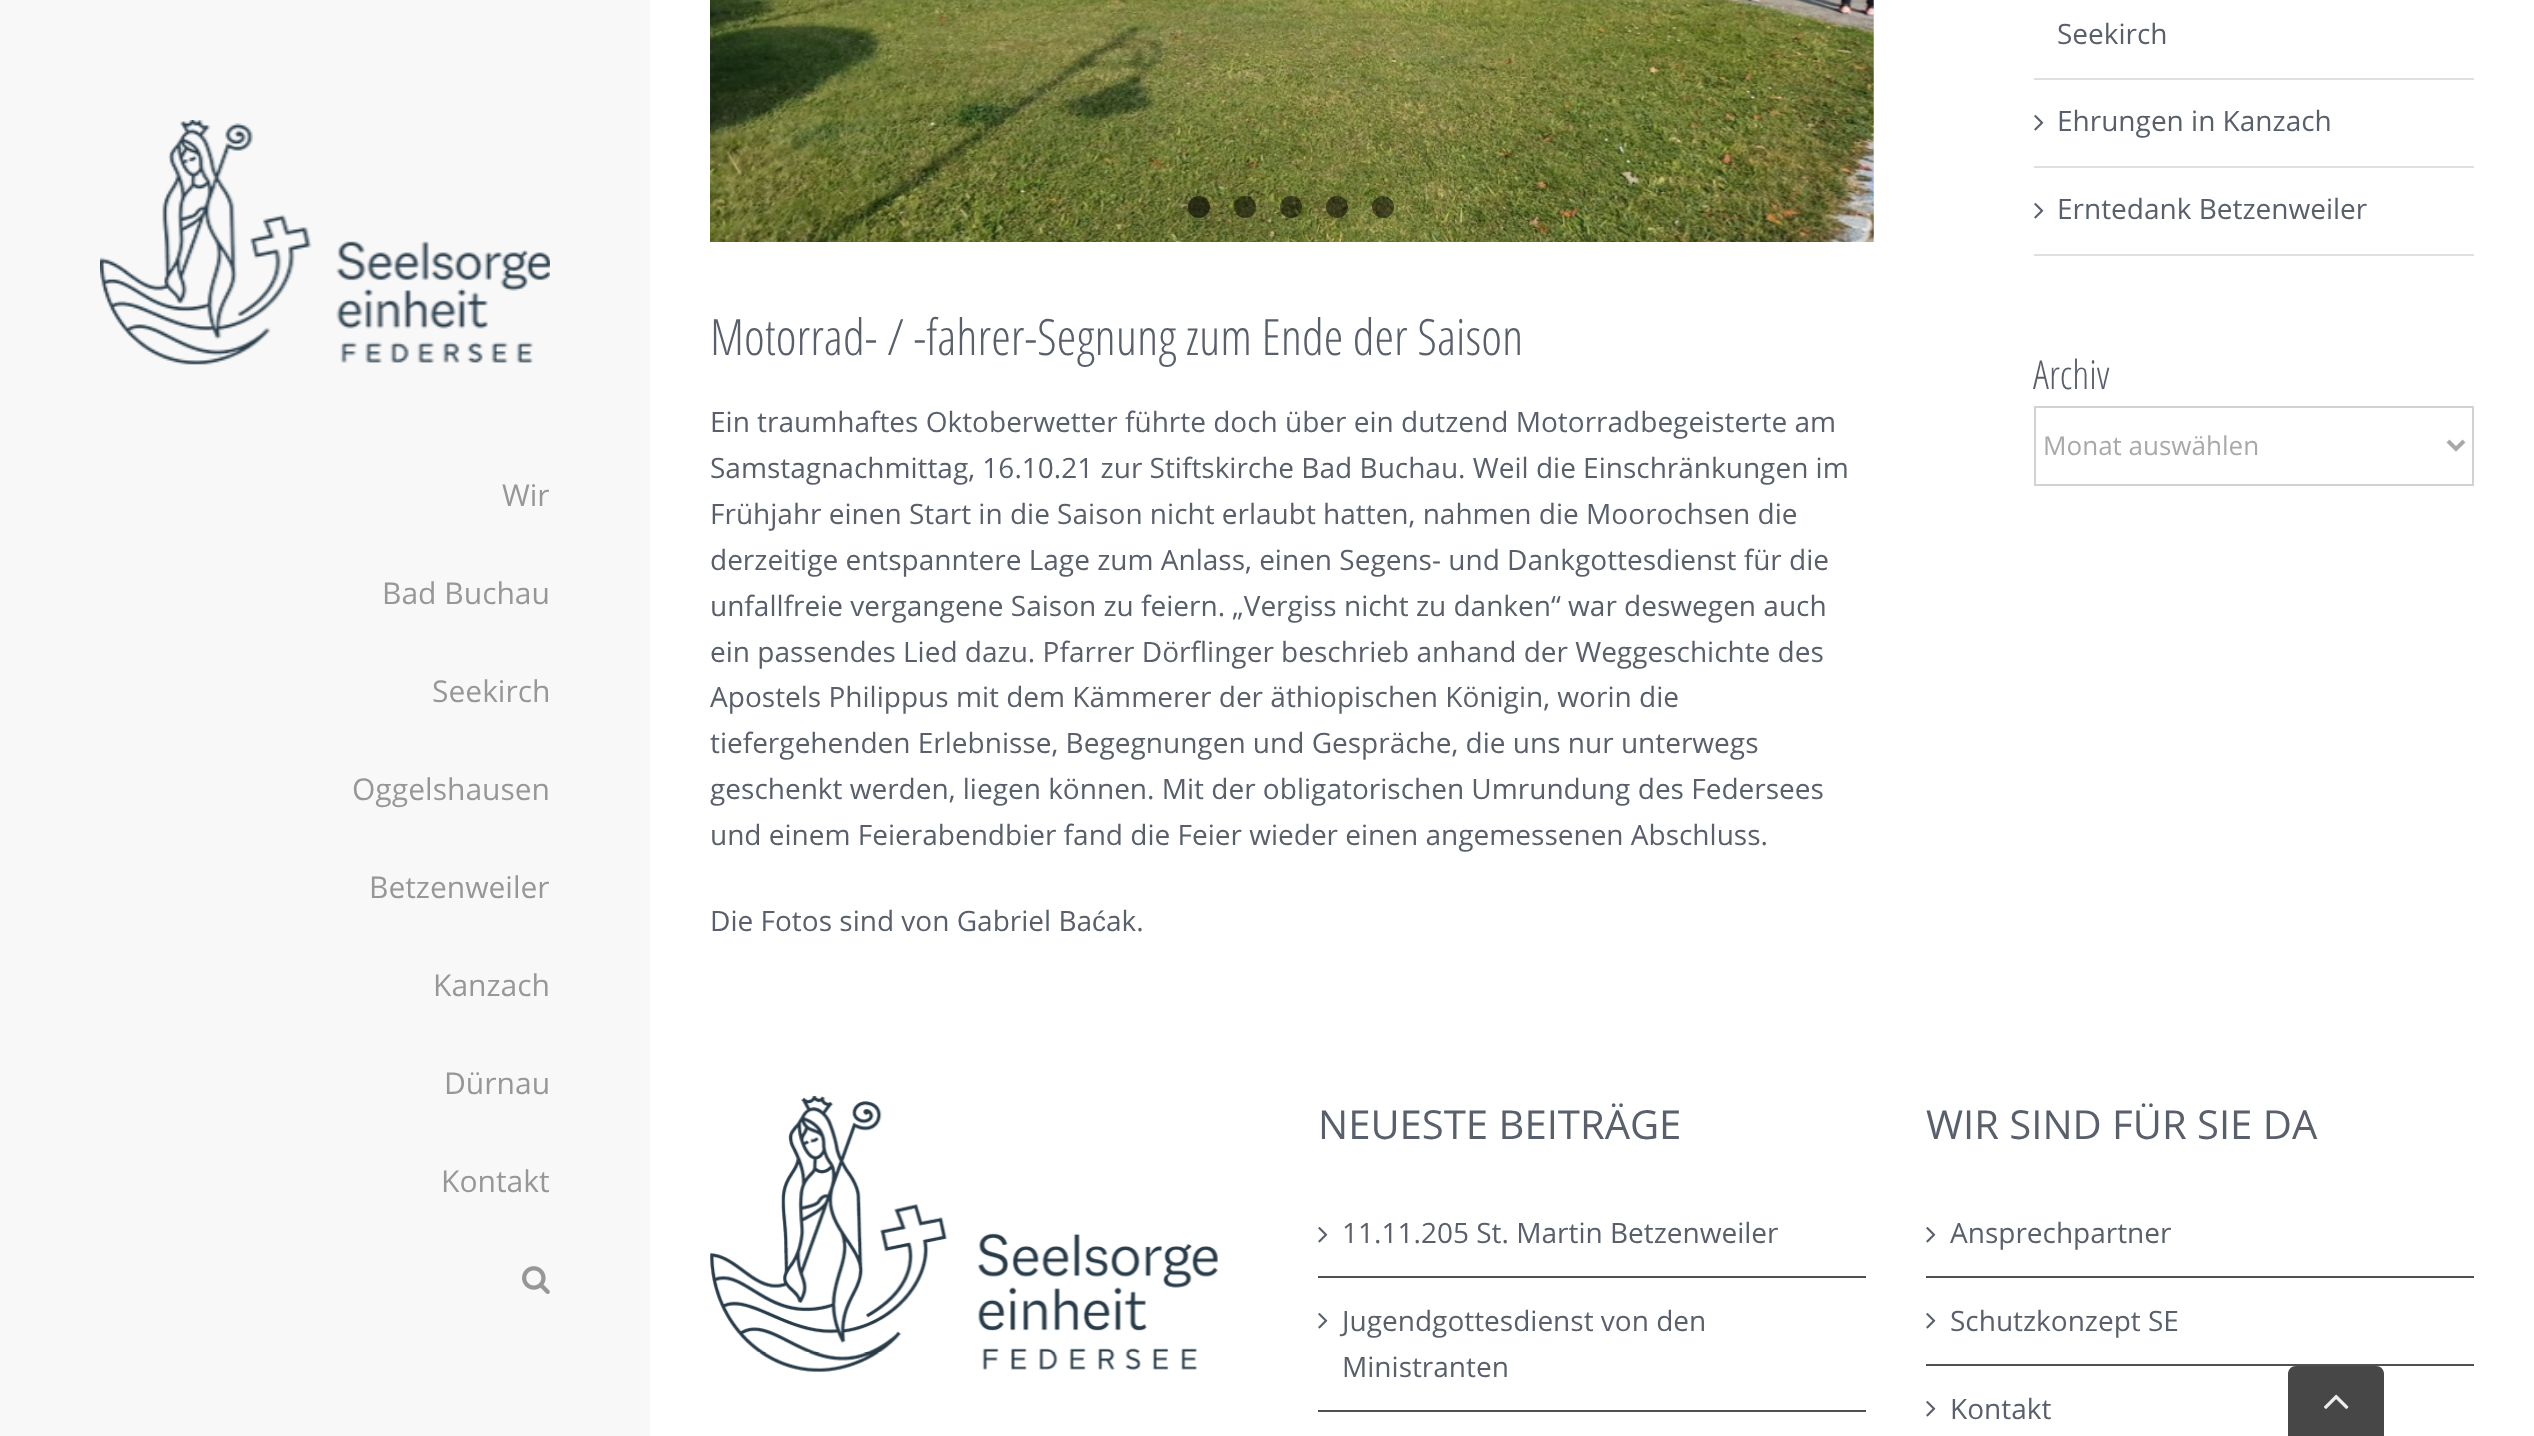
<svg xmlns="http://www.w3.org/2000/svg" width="2534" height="1436">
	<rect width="100%" height="100%" fill="#FFFFFF" />
	<rect x="0" y="0" width="650" height="1436" fill="#F8F8F8" />
	<image x="100" y="120" width="450" height="245" href="assets/img1.png" />
	<g font-family="Open Sans" font-size="30" fill="#979797">
		<text x="502" y="506">Wir</text>
		<text x="382" y="604">Bad Buchau</text>
		<text x="432" y="702">Seekirch</text>
		<text x="352" y="800">Oggelshausen</text>
		<text x="369" y="898">Betzenweiler</text>
		<text x="433" y="996">Kanzach</text>
		<text x="444" y="1094">Dürnau</text>
		<text x="441" y="1192">Kontakt</text>
	</g>
	<image x="522" y="1266" width="28" height="28" href="assets/img2.png" />
	<rect x="2034" y="78" width="440" height="2" fill="#E0DEDE" />
	<text x="2057" y="44" font-family="Open Sans" font-size="28" fill="#595F6B">Seekirch</text>
	<rect x="2034" y="166" width="440" height="2" fill="#E0DEDE" />
	<image x="2034" y="115" width="10" height="16" href="assets/img3.png" />
	<text x="2057" y="131" font-family="Open Sans" font-size="28" fill="#595F6B">Ehrungen in Kanzach</text>
	<rect x="2034" y="254" width="440" height="2" fill="#E0DEDE" />
	<image x="2034" y="203" width="10" height="16" href="assets/img3.png" />
	<text x="2057" y="219" font-family="Open Sans" font-size="28" fill="#595F6B">Erntedank Betzenweiler</text>
	<text x="2033" y="389" font-family="Open Sans Condensed" font-size="40" font-weight="300" fill="#595F6B">Archiv</text>
	<rect x="2035" y="407" width="438" height="78" fill="none" stroke="#D2D2D2" stroke-width="2" />
	<path d="M2448 441L2456 449L2464 441" fill="none" stroke="#AAA9A9" stroke-width="4" />
	<text x="2043" y="455" font-family="Open Sans" font-size="26" fill="#AAA9A9">Monat auswählen</text>
	<image x="710" y="0" width="1164" height="242" href="assets/img4.png" />
	<circle cx="1199" cy="207" r="11" fill="#000000" fill-opacity="0.6" />
	<circle cx="1245" cy="207" r="11" fill="#000000" fill-opacity="0.5" />
	<circle cx="1291" cy="207" r="11" fill="#000000" fill-opacity="0.5" />
	<circle cx="1337" cy="207" r="11" fill="#000000" fill-opacity="0.5" />
	<circle cx="1383" cy="207" r="11" fill="#000000" fill-opacity="0.5" />
	<text x="710" y="355" font-family="Open Sans Condensed" font-size="50" font-weight="300" fill="#595F6B">Motorrad- / -fahrer-Segnung zum Ende der Saison</text>
	<g font-family="Open Sans" font-size="28" fill="#595F6B">
		<text x="710" y="432">Ein traumhaftes Oktoberwetter führte doch über ein dutzend Motorradbegeisterte am</text>
		<text x="710" y="478">Samstagnachmittag, 16.10.21 zur Stiftskirche Bad Buchau. Weil die Einschränkungen im</text>
		<text x="710" y="524">Frühjahr einen Start in die Saison nicht erlaubt hatten, nahmen die Moorochsen die</text>
		<text x="710" y="570">derzeitige entspanntere Lage zum Anlass, einen Segens- und Dankgottesdienst für die</text>
		<text x="710" y="616">unfallfreie vergangene Saison zu feiern. „Vergiss nicht zu danken“ war deswegen auch</text>
		<text x="710" y="662">ein passendes Lied dazu. Pfarrer Dörflinger beschrieb anhand der Weggeschichte des</text>
		<text x="710" y="707">Apostels Philippus mit dem Kämmerer der äthiopischen Königin, worin die</text>
		<text x="710" y="753">tiefergehenden Erlebnisse, Begegnungen und Gespräche, die uns nur unterwegs</text>
		<text x="710" y="799">geschenkt werden, liegen können. Mit der obligatorischen Umrundung des Federsees</text>
		<text x="710" y="845">und einem Feierabendbier fand die Feier wieder einen angemessenen Abschluss.</text>
		<text x="710" y="931">Die Fotos sind von Gabriel Ba</text>
	</g>
	<text x="1092" y="931" font-family="Liberation Sans" font-size="28" fill="#595F6B">ć</text>
	<text x="1106" y="931" font-family="Open Sans" font-size="28" fill="#595F6B">ak.</text>
	<image x="710" y="1095" width="508" height="277" href="assets/img5.png" />
	<text x="1318" y="1139" font-family="Open Sans" font-size="40" fill="#595F6B">NEUESTE BEITRÄGE</text>
	<rect x="1318" y="1276" width="548" height="2" fill="#505152" />
	<image x="1318" y="1227" width="10" height="16" href="assets/img3.png" />
	<text x="1342" y="1243" font-family="Open Sans" font-size="28" fill="#595F6B">11.11.205 St. Martin Betzenweiler</text>
	<rect x="1318" y="1410" width="548" height="2" fill="#505152" />
	<image x="1318" y="1313" width="10" height="16" href="assets/img3.png" />
	<g font-family="Open Sans" font-size="28" fill="#595F6B">
		<text x="1342" y="1331">Jugendgottesdienst von den</text>
		<text x="1342" y="1377">Ministranten</text>
	</g>
	<text x="1926" y="1139" font-family="Open Sans" font-size="40" fill="#595F6B">WIR SIND FÜR SIE DA</text>
	<rect x="1926" y="1276" width="548" height="2" fill="#505152" />
	<image x="1926" y="1227" width="10" height="16" href="assets/img3.png" />
	<text x="1950" y="1243" font-family="Open Sans" font-size="28" fill="#595F6B">Ansprechpartner</text>
	<rect x="1926" y="1364" width="548" height="2" fill="#505152" />
	<image x="1926" y="1313" width="10" height="16" href="assets/img3.png" />
	<text x="1950" y="1331" font-family="Open Sans" font-size="28" fill="#595F6B">Schutzkonzept SE</text>
	<image x="1926" y="1401" width="10" height="16" href="assets/img3.png" />
	<text x="1950" y="1419" font-family="Open Sans" font-size="28" fill="#595F6B">Kontakt</text>
	<path d="M2296 1366H2376C2380.5 1366 2384 1369.5 2384 1374V1436H2288V1374C2288 1369.5 2291.5 1366 2296 1366Z" fill="#474747" />
	<image x="2324" y="1394" width="25" height="15" href="assets/img6.png" />
</svg>
